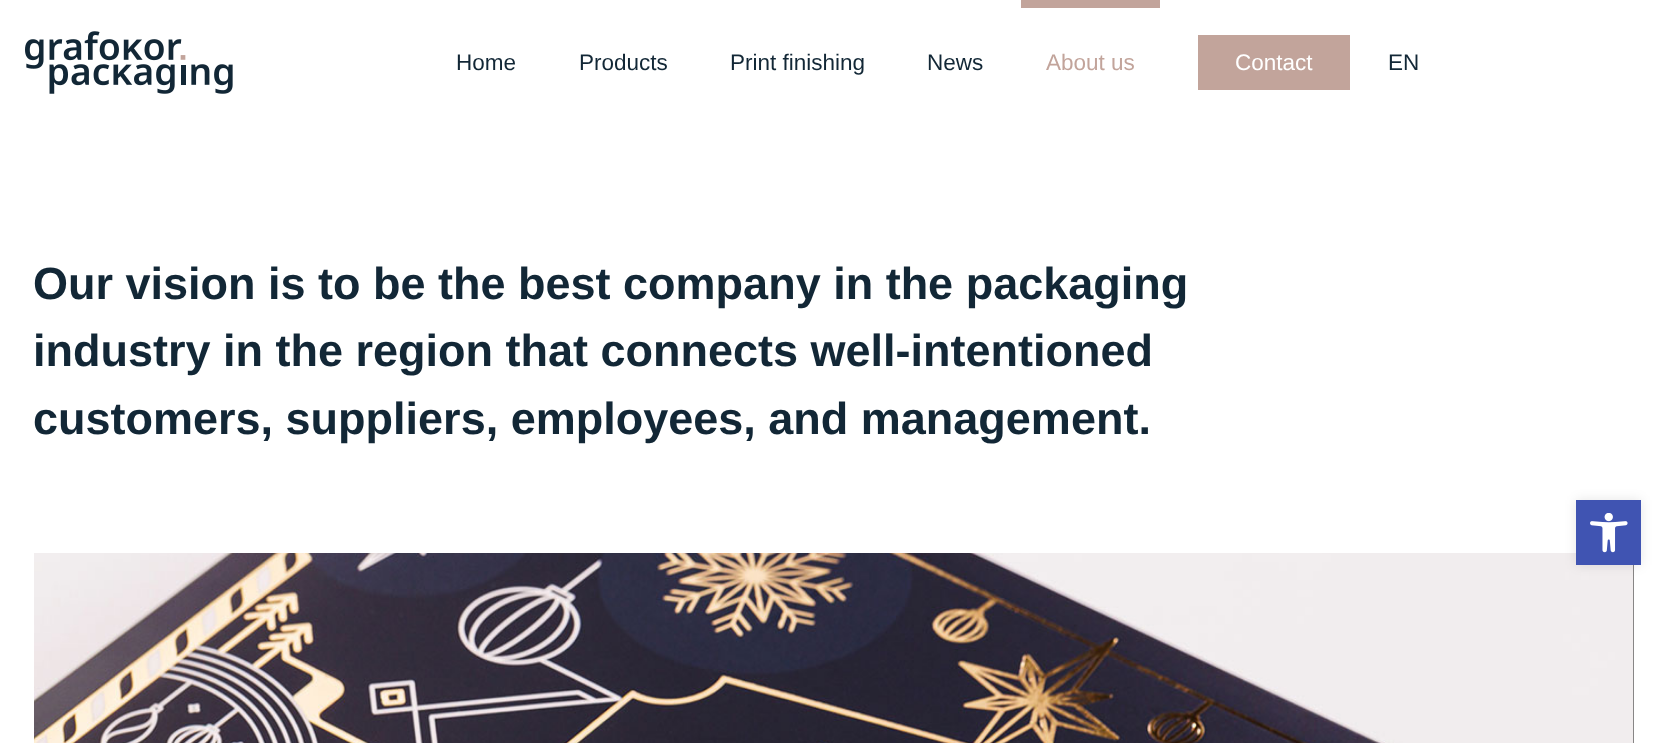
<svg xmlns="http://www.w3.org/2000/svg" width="1666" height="743">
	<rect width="100%" height="100%" fill="#FFFFFF" />
	<image x="25" y="31" width="208" height="63" href="assets/img1.png" />
	<g font-family="Liberation Sans" font-size="22.5" fill="#122736">
		<text x="456" y="70">Home</text>
		<text x="579" y="70">Products</text>
		<text x="730" y="70">Print finishing</text>
		<text x="927" y="70">News</text>
	</g>
	<rect x="1021" y="0" width="139" height="8" fill="#C2A49B" />
	<text x="1046" y="70" font-family="Liberation Sans" font-size="22.5" fill="#C2A49B">About us</text>
	<rect x="1198" y="35" width="152" height="55" fill="#C2A49B" />
	<text x="1235" y="70" font-family="Liberation Sans" font-size="22.5" fill="#FFFFFF">Contact</text>
	<text x="1388" y="70" font-family="Liberation Sans" font-size="22.5" fill="#122736">EN</text>
	<g font-family="Liberation Sans" font-size="45" font-weight="700" fill="#122736">
		<text x="33" y="299">Our vision is to be the best company in the packaging</text>
		<text x="33" y="366">industry in the region that connects well-intentioned</text>
		<text x="33" y="434">customers, suppliers, employees, and management.</text>
	</g>
	<rect x="1633" y="565" width="1" height="178" fill="#000000" />
	<image x="34" y="553" width="1600" height="190" href="assets/img2.png" />
	<rect x="1576" y="500" width="65" height="65" fill="#000000" fill-opacity="0.1" filter="blur(6px)" />
	<rect x="1576" y="500" width="65" height="65" fill="#4054B2" />
	<image x="1590" y="513" width="38" height="40" href="assets/img3.png" />
</svg>
